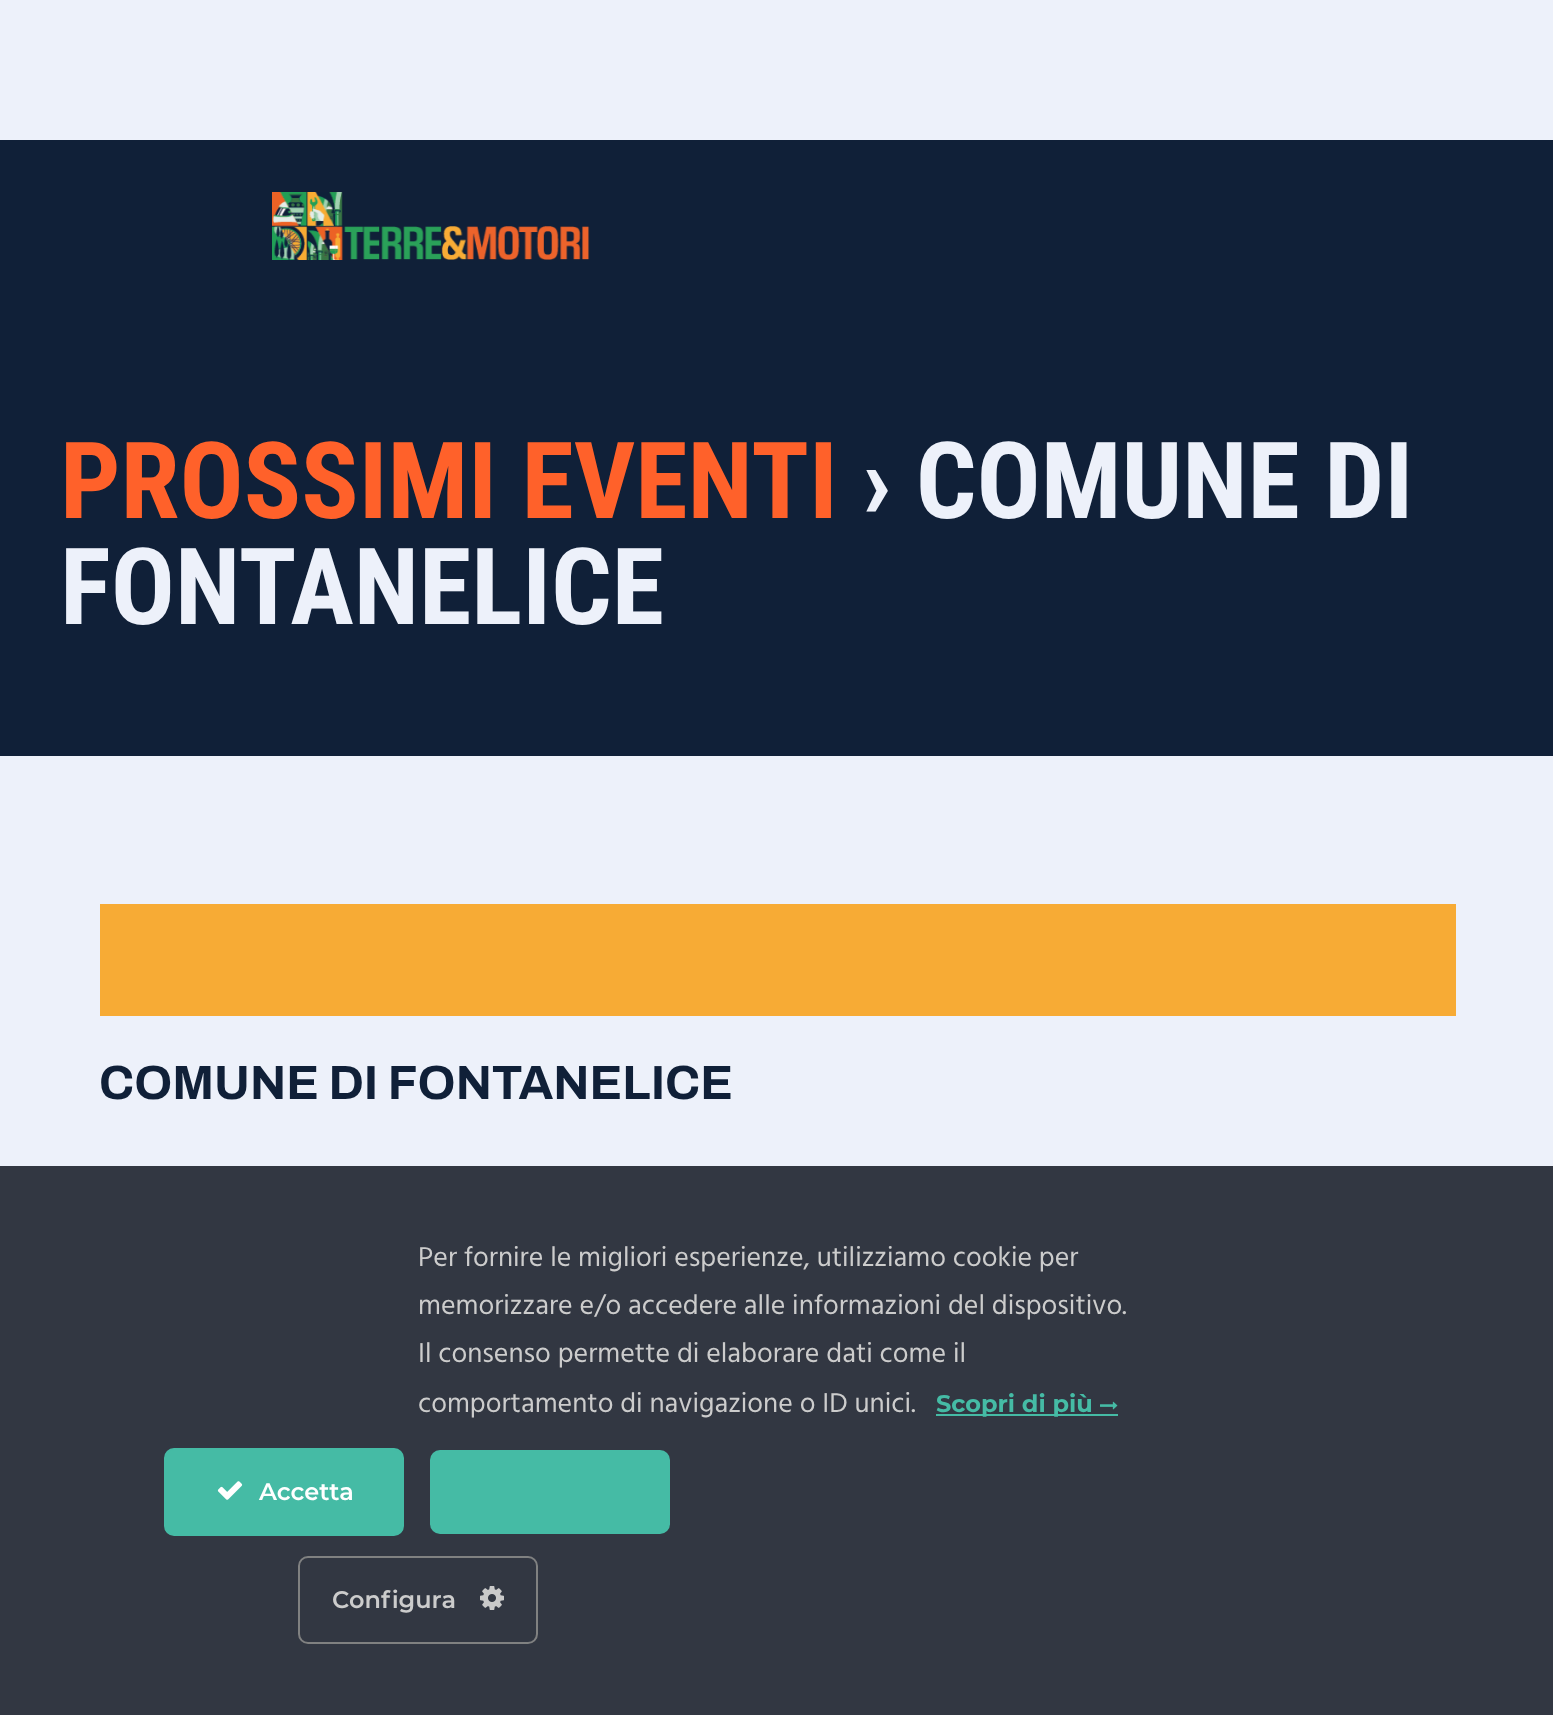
<svg xmlns="http://www.w3.org/2000/svg" width="1553" height="1715">
	<rect width="100%" height="100%" fill="#EDF1FA" />
	<rect x="0" y="140" width="1553" height="616" fill="#102038" />
	<image x="272" y="192" width="318" height="68" href="assets/img1.png" />
	<text x="60" y="518" font-family="Roboto Condensed" font-size="106.5" font-weight="700" fill="#FF612A">PROSSIMI EVENTI</text>
	<g font-family="Roboto Condensed" font-size="106.5" font-weight="700" fill="#EDF1FA">
		<text x="862" y="518">› COMUNE DI</text>
		<text x="60" y="624">FONTANELICE</text>
	</g>
	<rect x="100" y="904" width="1356" height="112" fill="#F7AB35" />
	<text x="99" y="1099" font-family="Archivo" font-size="48" font-weight="700" fill="#102038">COMUNE DI FONTANELICE</text>
	<rect x="0" y="1166" width="1553" height="549" fill="#323742" />
	<g font-family="Hind" font-size="28" fill="#CCCCCC">
		<text x="418" y="1266">Per fornire le migliori esperienze, utilizziamo cookie per</text>
		<text x="418" y="1314">memorizzare e/o accedere alle informazioni del dispositivo.</text>
		<text x="418" y="1362">Il consenso permette di elaborare dati come il</text>
		<text x="418" y="1412">comportamento di navigazione o ID unici.</text>
	</g>
	<rect x="936" y="1414" width="182" height="2" fill="#45BBA5" />
	<text x="936" y="1412" font-family="Montserrat" font-size="24" font-weight="700" fill="#45BBA5">Scopri di più</text>
	<image x="1100" y="1401" width="18" height="9" href="assets/img2.png" />
	<rect x="165" y="1449" width="238" height="86" rx="9" fill="#45BBA5" stroke="#45BBA5" stroke-width="2" />
	<image x="217" y="1481" width="26" height="19" href="assets/img3.png" />
	<text x="259" y="1500" font-family="Montserrat" font-size="24" font-weight="600" fill="#FFFFFF">Accetta</text>
	<rect x="430" y="1450" width="240" height="84" rx="10" fill="#45BBA5" />
	<rect x="299" y="1557" width="238" height="86" rx="9" fill="none" stroke="#808181" stroke-width="2" />
	<text x="332" y="1608" font-family="Montserrat" font-size="24" font-weight="600" fill="#CCCCCC">Configura</text>
	<image x="480" y="1586" width="24" height="24" href="assets/img4.png" />
</svg>
